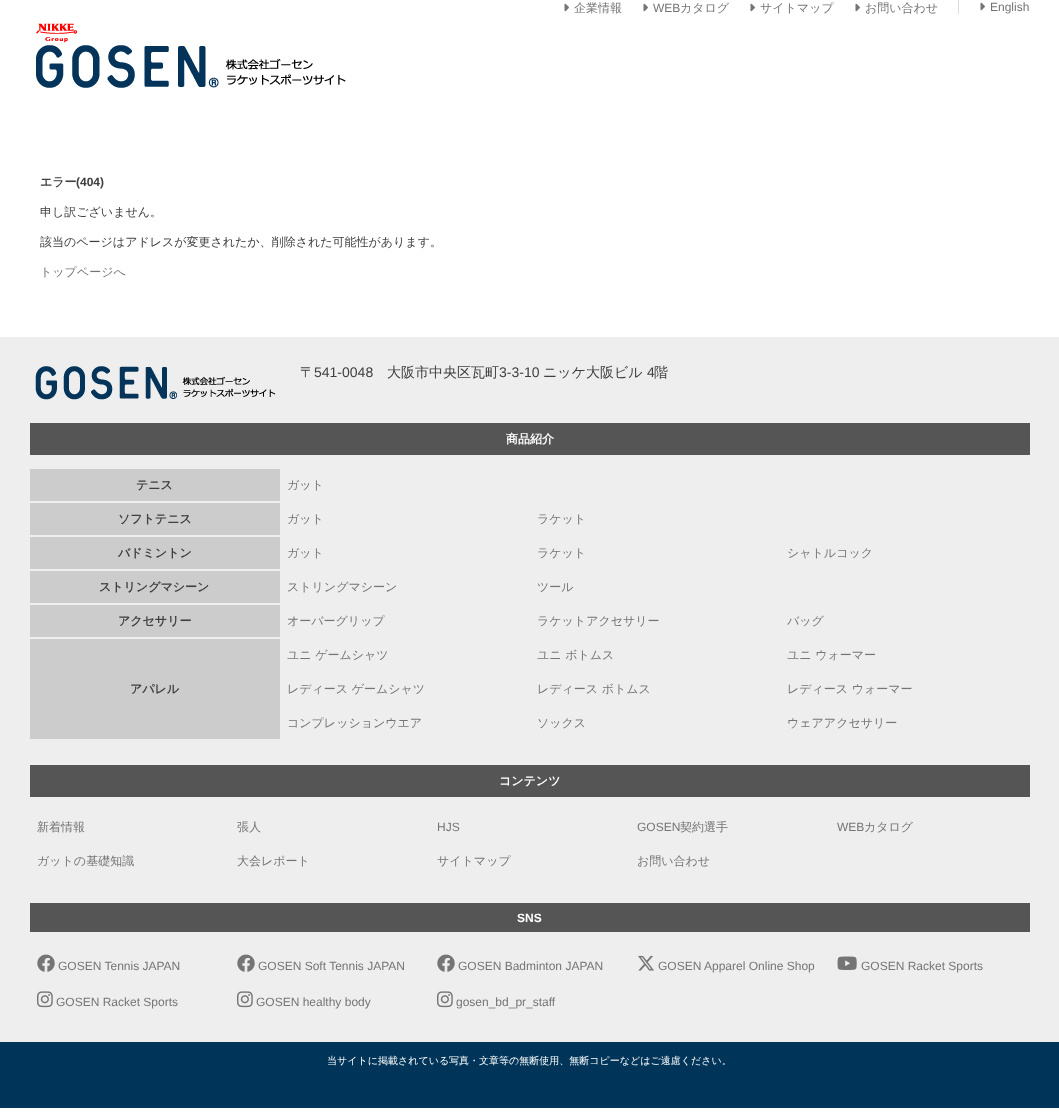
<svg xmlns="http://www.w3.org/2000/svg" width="1059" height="1116">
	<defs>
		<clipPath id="clip1"><rect x="40" y="167" width="980" height="120" /></clipPath>
	</defs>
	<rect width="100%" height="100%" fill="#FFFFFF" />
	<image x="564" y="3" width="5" height="9" href="assets/img1.png" />
	<text x="574" y="12" font-family="WenQuanYi Zen Hei" font-size="12" font-weight="500" fill="#757575">企業情報</text>
	<image x="643" y="3" width="5" height="9" href="assets/img1.png" />
	<text x="653" y="12" font-family="Liberation Sans" font-size="12" fill="#757575">WEB</text>
	<text x="680" y="12" font-family="WenQuanYi Zen Hei" font-size="12" font-weight="500" fill="#757575">カタログ</text>
	<image x="750" y="3" width="5" height="9" href="assets/img1.png" />
	<text x="760" y="12" font-family="WenQuanYi Zen Hei" font-size="12" font-weight="500" fill="#757575">サイトマップ</text>
	<image x="855" y="3" width="5" height="9" href="assets/img1.png" />
	<text x="865" y="12" font-family="WenQuanYi Zen Hei" font-size="12" font-weight="500" fill="#757575">お問い合わせ</text>
	<rect x="958" y="0" width="1" height="14" fill="#DCDCDC" />
	<image x="980" y="2" width="5" height="9" href="assets/img1.png" />
	<text x="990" y="11" font-family="Liberation Sans" font-size="12" fill="#757575">English</text>
	<image x="36" y="23" width="310" height="65" href="assets/img2.png" />
	<text x="40" y="186" font-family="WenQuanYi Zen Hei" font-size="12" font-weight="700" fill="#404040">エラー</text>
	<text x="76" y="186" font-family="Liberation Sans" font-size="12" font-weight="700" fill="#404040">(404)</text>
	<text x="40" y="216" font-family="WenQuanYi Zen Hei" font-size="12" font-weight="500" fill="#404040">申し訳ございません。</text>
	<g clip-path="url(#clip1)">
		<text x="40" y="246" font-family="WenQuanYi Zen Hei" font-size="12" font-weight="500" fill="#404040">該当のページはアドレスが変更されたか、削除された可能性があります。</text>
	</g>
	<text x="40" y="276" font-family="WenQuanYi Zen Hei" font-size="12" font-weight="500" fill="#757575">トップページへ</text>
	<rect x="0" y="337" width="1059" height="705" fill="#EEEEEE" />
	<image x="35" y="366" width="241" height="34" href="assets/img3.png" />
	<text x="300" y="377" font-family="WenQuanYi Zen Hei" font-size="14" font-weight="500" fill="#404040">〒</text>
	<text x="314" y="377" font-family="Liberation Sans" font-size="14" fill="#404040">541-0048</text>
	<text x="387" y="377" font-family="WenQuanYi Zen Hei" font-size="14" font-weight="500" fill="#404040">大阪市中央区瓦町</text>
	<text x="499" y="377" font-family="Liberation Sans" font-size="14" fill="#404040">3-3-10</text>
	<text x="543" y="377" font-family="WenQuanYi Zen Hei" font-size="14" font-weight="500" fill="#404040">ニッケ大阪ビル</text>
	<text x="647" y="377" font-family="Liberation Sans" font-size="14" fill="#404040">4</text>
	<text x="654" y="377" font-family="WenQuanYi Zen Hei" font-size="14" font-weight="500" fill="#404040">階</text>
	<rect x="30" y="423" width="1000" height="32" fill="#555555" />
	<text x="506" y="443" font-family="WenQuanYi Zen Hei" font-size="12" font-weight="700" fill="#FFFFFF">商品紹介</text>
	<rect x="30" y="469" width="250" height="32" fill="#CCCCCC" />
	<text x="136" y="489" font-family="WenQuanYi Zen Hei" font-size="12" font-weight="700" fill="#404040">テニス</text>
	<text x="287" y="489" font-family="WenQuanYi Zen Hei" font-size="12" font-weight="500" fill="#757575">ガット</text>
	<rect x="30" y="503" width="250" height="32" fill="#CCCCCC" />
	<text x="118" y="523" font-family="WenQuanYi Zen Hei" font-size="12" font-weight="700" fill="#404040">ソフトテニス</text>
	<g font-family="WenQuanYi Zen Hei" font-size="12" font-weight="500" fill="#757575">
		<text x="287" y="523">ガット</text>
		<text x="537" y="523">ラケット</text>
	</g>
	<rect x="30" y="537" width="250" height="32" fill="#CCCCCC" />
	<text x="118" y="557" font-family="WenQuanYi Zen Hei" font-size="12" font-weight="700" fill="#404040">バドミントン</text>
	<g font-family="WenQuanYi Zen Hei" font-size="12" font-weight="500" fill="#757575">
		<text x="287" y="557">ガット</text>
		<text x="537" y="557">ラケット</text>
		<text x="787" y="557">シャトルコック</text>
	</g>
	<rect x="30" y="571" width="250" height="32" fill="#CCCCCC" />
	<text x="99" y="591" font-family="WenQuanYi Zen Hei" font-size="12" font-weight="700" fill="#404040">ストリングマシーン</text>
	<g font-family="WenQuanYi Zen Hei" font-size="12" font-weight="500" fill="#757575">
		<text x="287" y="591">ストリングマシーン</text>
		<text x="537" y="591">ツール</text>
	</g>
	<rect x="30" y="605" width="250" height="32" fill="#CCCCCC" />
	<text x="118" y="625" font-family="WenQuanYi Zen Hei" font-size="12" font-weight="700" fill="#404040">アクセサリー</text>
	<g font-family="WenQuanYi Zen Hei" font-size="12" font-weight="500" fill="#757575">
		<text x="287" y="625">オーバーグリップ</text>
		<text x="537" y="625">ラケットアクセサリー</text>
		<text x="787" y="625">バッグ</text>
		<text x="287" y="659">ユニ ゲームシャツ</text>
		<text x="537" y="659">ユニ ボトムス</text>
		<text x="787" y="659">ユニ ウォーマー</text>
	</g>
	<rect x="30" y="639" width="250" height="100" fill="#CCCCCC" />
	<text x="130" y="693" font-family="WenQuanYi Zen Hei" font-size="12" font-weight="700" fill="#404040">アパレル</text>
	<g font-family="WenQuanYi Zen Hei" font-size="12" font-weight="500" fill="#757575">
		<text x="287" y="693">レディース ゲームシャツ</text>
		<text x="537" y="693">レディース ボトムス</text>
		<text x="787" y="693">レディース ウォーマー</text>
		<text x="287" y="727">コンプレッションウエア</text>
		<text x="537" y="727">ソックス</text>
		<text x="787" y="727">ウェアアクセサリー</text>
	</g>
	<rect x="30" y="765" width="1000" height="32" fill="#555555" />
	<text x="499" y="785" font-family="WenQuanYi Zen Hei" font-size="12" font-weight="700" fill="#FFFFFF">コンテンツ</text>
	<g font-family="WenQuanYi Zen Hei" font-size="12" font-weight="500" fill="#757575">
		<text x="37" y="831">新着情報</text>
		<text x="237" y="831">張人</text>
	</g>
	<g font-family="Liberation Sans" font-size="12" fill="#757575">
		<text x="437" y="831">HJS</text>
		<text x="637" y="831">GOSEN</text>
	</g>
	<text x="680" y="831" font-family="WenQuanYi Zen Hei" font-size="12" font-weight="500" fill="#757575">契約選手</text>
	<text x="837" y="831" font-family="Liberation Sans" font-size="12" fill="#757575">WEB</text>
	<g font-family="WenQuanYi Zen Hei" font-size="12" font-weight="500" fill="#757575">
		<text x="864" y="831">カタログ</text>
		<text x="37" y="865">ガットの基礎知識</text>
		<text x="237" y="865">大会レポート</text>
		<text x="437" y="865">サイトマップ</text>
		<text x="637" y="865">お問い合わせ</text>
	</g>
	<rect x="30" y="903" width="1000" height="29" fill="#555555" />
	<text x="517" y="922" font-family="Liberation Sans" font-size="12" font-weight="700" fill="#FFFFFF">SNS</text>
	<image x="37" y="954" width="18" height="18" href="assets/img4.png" />
	<text x="58" y="970" font-family="Liberation Sans" font-size="12" fill="#757575">GOSEN Tennis JAPAN</text>
	<image x="237" y="954" width="18" height="18" href="assets/img4.png" />
	<text x="258" y="970" font-family="Liberation Sans" font-size="12" fill="#757575">GOSEN Soft Tennis JAPAN</text>
	<image x="437" y="954" width="18" height="18" href="assets/img4.png" />
	<text x="458" y="970" font-family="Liberation Sans" font-size="12" fill="#757575">GOSEN Badminton JAPAN</text>
	<image x="638" y="955" width="16" height="16" href="assets/img5.png" />
	<text x="658" y="970" font-family="Liberation Sans" font-size="12" fill="#757575">GOSEN Apparel Online Shop</text>
	<image x="837" y="956" width="20" height="14" href="assets/img6.png" />
	<text x="861" y="970" font-family="Liberation Sans" font-size="12" fill="#757575">GOSEN Racket Sports</text>
	<image x="37" y="991" width="16" height="17" href="assets/img7.png" />
	<text x="56" y="1006" font-family="Liberation Sans" font-size="12" fill="#757575">GOSEN Racket Sports</text>
	<image x="237" y="991" width="16" height="17" href="assets/img7.png" />
	<text x="256" y="1006" font-family="Liberation Sans" font-size="12" fill="#757575">GOSEN healthy body</text>
	<image x="437" y="991" width="16" height="17" href="assets/img7.png" />
	<text x="456" y="1006" font-family="Liberation Sans" font-size="12" fill="#757575">gosen_bd_pr_staff</text>
	<rect x="0" y="1042" width="1059" height="66" fill="#003559" />
	<text x="327" y="1064" font-family="WenQuanYi Zen Hei" font-size="10" font-weight="500" fill="#FFFFFF">当サイトに掲載されている写真・文章等の無断使用、無断コピーなどはご遠慮ください。</text>
</svg>
